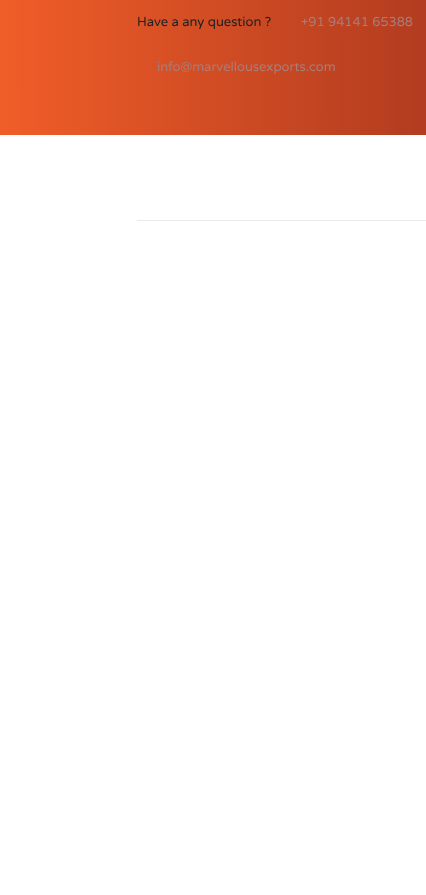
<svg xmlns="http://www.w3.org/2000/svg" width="426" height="895">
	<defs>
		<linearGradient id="g1" gradientUnits="userSpaceOnUse" x1="0" y1="68" x2="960" y2="67"><stop offset="0" stop-color="#F05D28" /><stop offset="1" stop-color="#651315" /></linearGradient>
	</defs>
	<rect width="100%" height="100%" fill="#FFFFFF" />
	<rect x="0" y="0" width="426" height="135" fill="url(#g1)" />
	<text x="137" y="26" font-family="Varela Round" font-size="13" fill="#222222">Have a any question ?</text>
	<g font-family="Varela Round" font-size="13" fill="#A87C79">
		<text x="301" y="26">+91 94141 65388</text>
		<text x="157" y="71">info@marvellousexports.com</text>
	</g>
	<rect x="137" y="220" width="289" height="1" fill="#EBEBEB" />
</svg>
